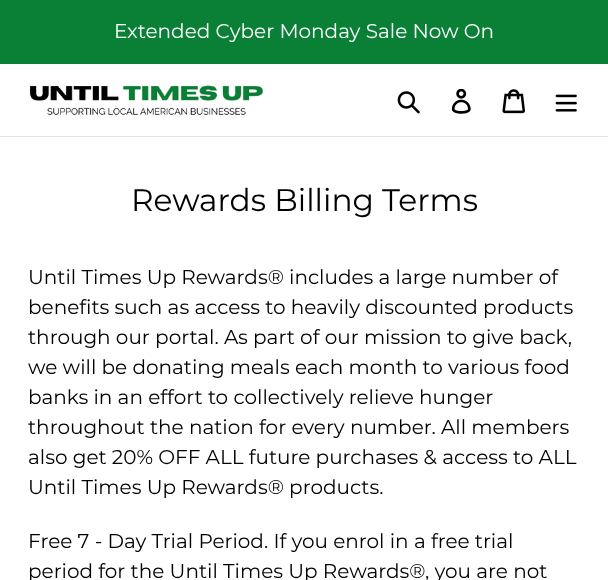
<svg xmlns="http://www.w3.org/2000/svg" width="608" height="580">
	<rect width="100%" height="100%" fill="#FFFFFF" />
	<rect x="0" y="0" width="608" height="64" fill="#0A8037" />
	<text x="114" y="38" font-family="Montserrat" font-size="20" fill="#FFFFFF">Extended Cyber Monday Sale Now On</text>
	<rect x="0" y="136" width="608" height="1" fill="#E4E4E4" />
	<image x="28" y="83" width="237" height="34" href="assets/img1.png" />
	<image x="397" y="91" width="23" height="23" href="assets/img2.png" />
	<image x="451" y="89" width="20" height="25" href="assets/img3.png" />
	<image x="502" y="89" width="23" height="25" href="assets/img4.png" />
	<image x="555" y="94" width="22" height="18" href="assets/img5.png" />
	<text x="131" y="211" font-family="Montserrat" font-size="31.25" fill="#000000">Rewards Billing Terms</text>
	<g font-family="Montserrat" font-size="20" fill="#000000">
		<text x="28" y="284">Until Times Up Rewards® includes a large number of</text>
		<text x="28" y="314">benefits such as access to heavily discounted products</text>
		<text x="28" y="344">through our portal. As part of our mission to give back,</text>
		<text x="28" y="374">we will be donating meals each month to various food</text>
		<text x="28" y="404">banks in an effort to collectively relieve hunger</text>
		<text x="28" y="434">throughout the nation for every number. All members</text>
		<text x="28" y="464">also get 20% OFF ALL future purchases &amp; access to ALL</text>
		<text x="28" y="494">Until Times Up Rewards® products.</text>
		<text x="28" y="548">Free 7 - Day Trial Period. If you enrol in a free trial</text>
		<text x="28" y="578">period for the Until Times Up Rewards®, you are not</text>
	</g>
</svg>
